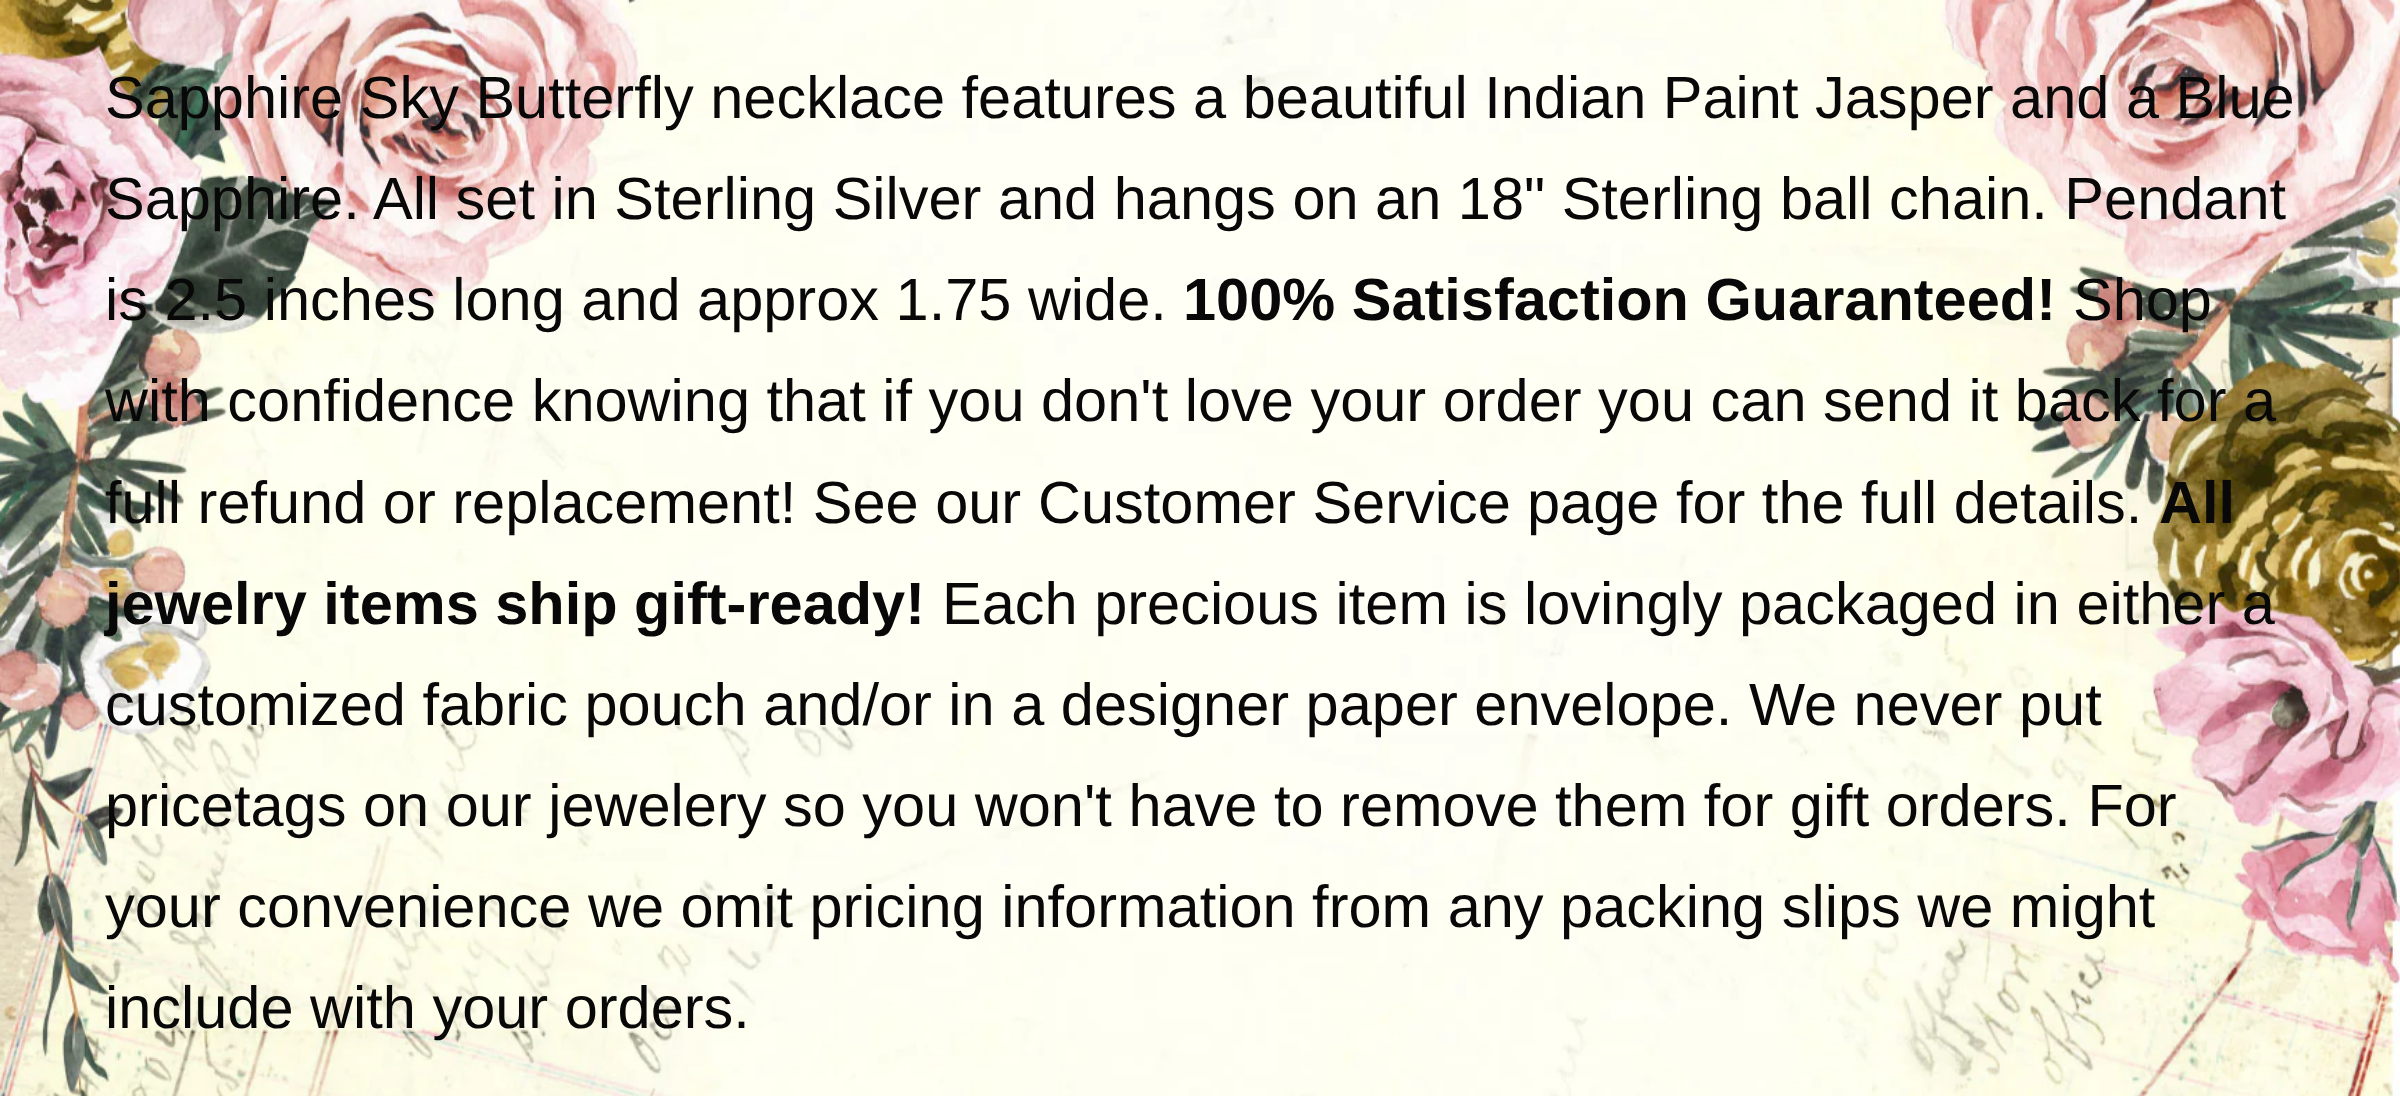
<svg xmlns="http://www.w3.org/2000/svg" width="2400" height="1096">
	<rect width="100%" height="100%" fill="#FFFFFF" />
	<image x="0" y="0" width="2400" height="1096" href="assets/img1.png" />
	<g font-family="Liberation Sans" font-size="59.5" fill="#080808">
		<text x="105" y="118">Sapphire Sky Butterfly necklace features a beautiful Indian Paint Jasper and a Blue</text>
		<text x="105" y="219">Sapphire. All set in Sterling Silver and hangs on an 18" Sterling ball chain. Pendant</text>
		<text x="105" y="320">is 2.5 inches long and approx 1.75 wide.</text>
	</g>
	<text x="1183" y="320" font-family="Liberation Sans" font-size="59.5" font-weight="700" fill="#080808">100% Satisfaction Guaranteed!</text>
	<g font-family="Liberation Sans" font-size="59.5" fill="#080808">
		<text x="2073" y="320">Shop</text>
		<text x="105" y="421">with confidence knowing that if you don't love your order you can send it back for a</text>
		<text x="105" y="523">full refund or replacement! See our</text>
		<text x="1038" y="523">Customer Service</text>
		<text x="1527" y="523">page for the full details.</text>
	</g>
	<g font-family="Liberation Sans" font-size="59.5" font-weight="700" fill="#080808">
		<text x="2159" y="523">All</text>
		<text x="105" y="624">jewelry items ship gift-ready!</text>
	</g>
	<g font-family="Liberation Sans" font-size="59.5" fill="#080808">
		<text x="942" y="624">Each precious item is lovingly packaged in either a</text>
		<text x="105" y="725">customized fabric pouch and/or in a designer paper envelope. We never put</text>
		<text x="105" y="826">pricetags on our jewelery so you won't have to remove them for gift orders. For</text>
		<text x="105" y="927">your convenience we omit pricing information from any packing slips we might</text>
		<text x="105" y="1028">include with your orders.</text>
	</g>
</svg>
